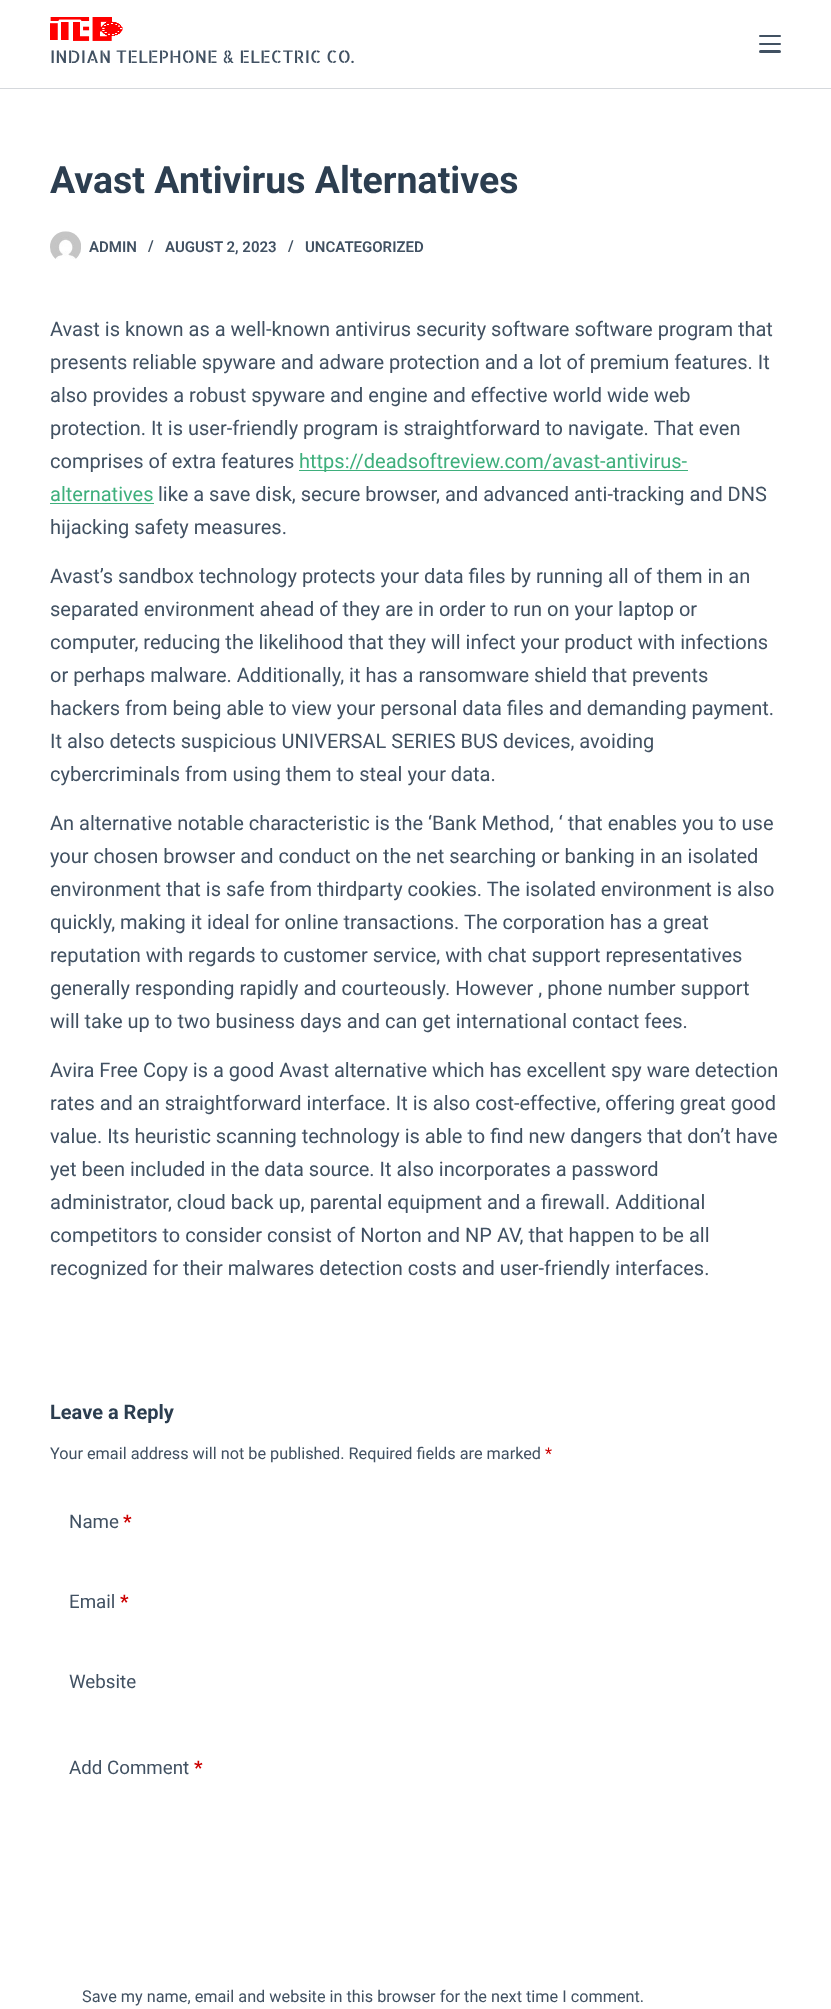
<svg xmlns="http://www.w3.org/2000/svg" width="831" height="2009">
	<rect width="100%" height="100%" fill="#FFFFFF" />
	<rect x="0" y="88" width="831" height="1" fill="#D5D8DC" />
	<rect x="759" y="35" width="22" height="2" rx="1" fill="#415162" />
	<rect x="759" y="43" width="22" height="2" rx="1" fill="#415162" />
	<rect x="759" y="50" width="22" height="3" rx="1.5" fill="#415162" />
	<image x="50" y="17" width="73" height="24" href="assets/img1.png" />
	<text x="50" y="63" font-family="Allerta Stencil" font-size="17.5" fill="#415162">INDIAN TELEPHONE &amp; ELECTRIC CO.</text>
	<text x="50" y="193" font-family="Roboto" font-size="37.5" font-weight="700" fill="#2C3E50">Avast Antivirus Alternatives</text>
	<image x="50" y="231" width="31" height="28" href="assets/img2.png" />
	<g font-family="Roboto" font-size="15" font-weight="600" fill="#415162">
		<text x="89" y="252">ADMIN</text>
		<text x="148" y="251">/</text>
		<text x="165" y="252">AUGUST 2, 2023</text>
		<text x="288" y="251">/</text>
		<text x="305" y="252">UNCATEGORIZED</text>
	</g>
	<g font-family="Roboto" font-size="20" fill="#415162">
		<text x="50" y="336">Avast is known as a well-known antivirus security software software program that</text>
		<text x="50" y="369">presents reliable spyware and adware protection and a lot of premium features. It</text>
		<text x="50" y="402">also provides a robust spyware and engine and effective world wide web</text>
		<text x="50" y="435">protection. It is user-friendly program is straightforward to navigate. That even</text>
		<text x="50" y="468">comprises of extra features</text>
	</g>
	<rect x="299" y="470" width="389" height="1" fill="#3EAF7C" />
	<g font-family="Roboto" font-size="20" fill="#3EAF7C">
		<text x="299" y="468">https://deadsoftreview.com/avast-antivirus-</text>
		<text x="50" y="501">alternatives</text>
	</g>
	<rect x="50" y="503" width="104" height="1" fill="#3EAF7C" />
	<g font-family="Roboto" font-size="20" fill="#415162">
		<text x="158" y="501">like a save disk, secure browser, and advanced anti-tracking and DNS</text>
		<text x="50" y="534">hijacking safety measures.</text>
		<text x="50" y="583">Avast’s sandbox technology protects your data files by running all of them in an</text>
		<text x="50" y="616">separated environment ahead of they are in order to run on your laptop or</text>
		<text x="50" y="649">computer, reducing the likelihood that they will infect your product with infections</text>
		<text x="50" y="682">or perhaps malware. Additionally, it has a ransomware shield that prevents</text>
		<text x="50" y="715">hackers from being able to view your personal data files and demanding payment.</text>
		<text x="50" y="748">It also detects suspicious UNIVERSAL SERIES BUS devices, avoiding</text>
		<text x="50" y="781">cybercriminals from using them to steal your data.</text>
		<text x="50" y="830">An alternative notable characteristic is the ‘Bank Method, ‘ that enables you to use</text>
		<text x="50" y="863">your chosen browser and conduct on the net searching or banking in an isolated</text>
		<text x="50" y="896">environment that is safe from thirdparty cookies. The isolated environment is also</text>
		<text x="50" y="929">quickly, making it ideal for online transactions. The corporation has a great</text>
		<text x="50" y="962">reputation with regards to customer service, with chat support representatives</text>
		<text x="50" y="995">generally responding rapidly and courteously. However , phone number support</text>
		<text x="50" y="1028">will take up to two business days and can get international contact fees.</text>
		<text x="50" y="1077">Avira Free Copy is a good Avast alternative which has excellent spy ware detection</text>
		<text x="50" y="1110">rates and an straightforward interface. It is also cost-effective, offering great good</text>
		<text x="50" y="1143">value. Its heuristic scanning technology is able to find new dangers that don’t have</text>
		<text x="50" y="1176">yet been included in the data source. It also incorporates a password</text>
		<text x="50" y="1209">administrator, cloud back up, parental equipment and a firewall. Additional</text>
		<text x="50" y="1242">competitors to consider consist of Norton and NP AV, that happen to be all</text>
		<text x="50" y="1275">recognized for their malwares detection costs and user-friendly interfaces.</text>
	</g>
	<text x="50" y="1419" font-family="Roboto" font-size="20" font-weight="700" fill="#2C3E50">Leave a Reply</text>
	<text x="50" y="1459" font-family="Roboto" font-size="16.25" fill="#415162">Your email address will not be published. Required fields are marked</text>
	<text x="545" y="1459" font-family="Roboto" font-size="16.25" fill="#CC0000">*</text>
	<text x="69" y="1528" font-family="Roboto" font-size="18.75" fill="#415162">Name</text>
	<text x="123" y="1528" font-family="Roboto" font-size="18.75" font-weight="700" fill="#CC0000">*</text>
	<text x="69" y="1608" font-family="Roboto" font-size="18.75" fill="#415162">Email</text>
	<text x="120" y="1608" font-family="Roboto" font-size="18.75" font-weight="700" fill="#CC0000">*</text>
	<g font-family="Roboto" font-size="18.75" fill="#415162">
		<text x="69" y="1688">Website</text>
		<text x="69" y="1774">Add Comment</text>
	</g>
	<text x="194" y="1774" font-family="Roboto" font-size="18.75" font-weight="700" fill="#CC0000">*</text>
	<text x="82" y="2002" font-family="Roboto" font-size="16.25" fill="#415162">Save my name, email and website in this browser for the next time I comment.</text>
</svg>
